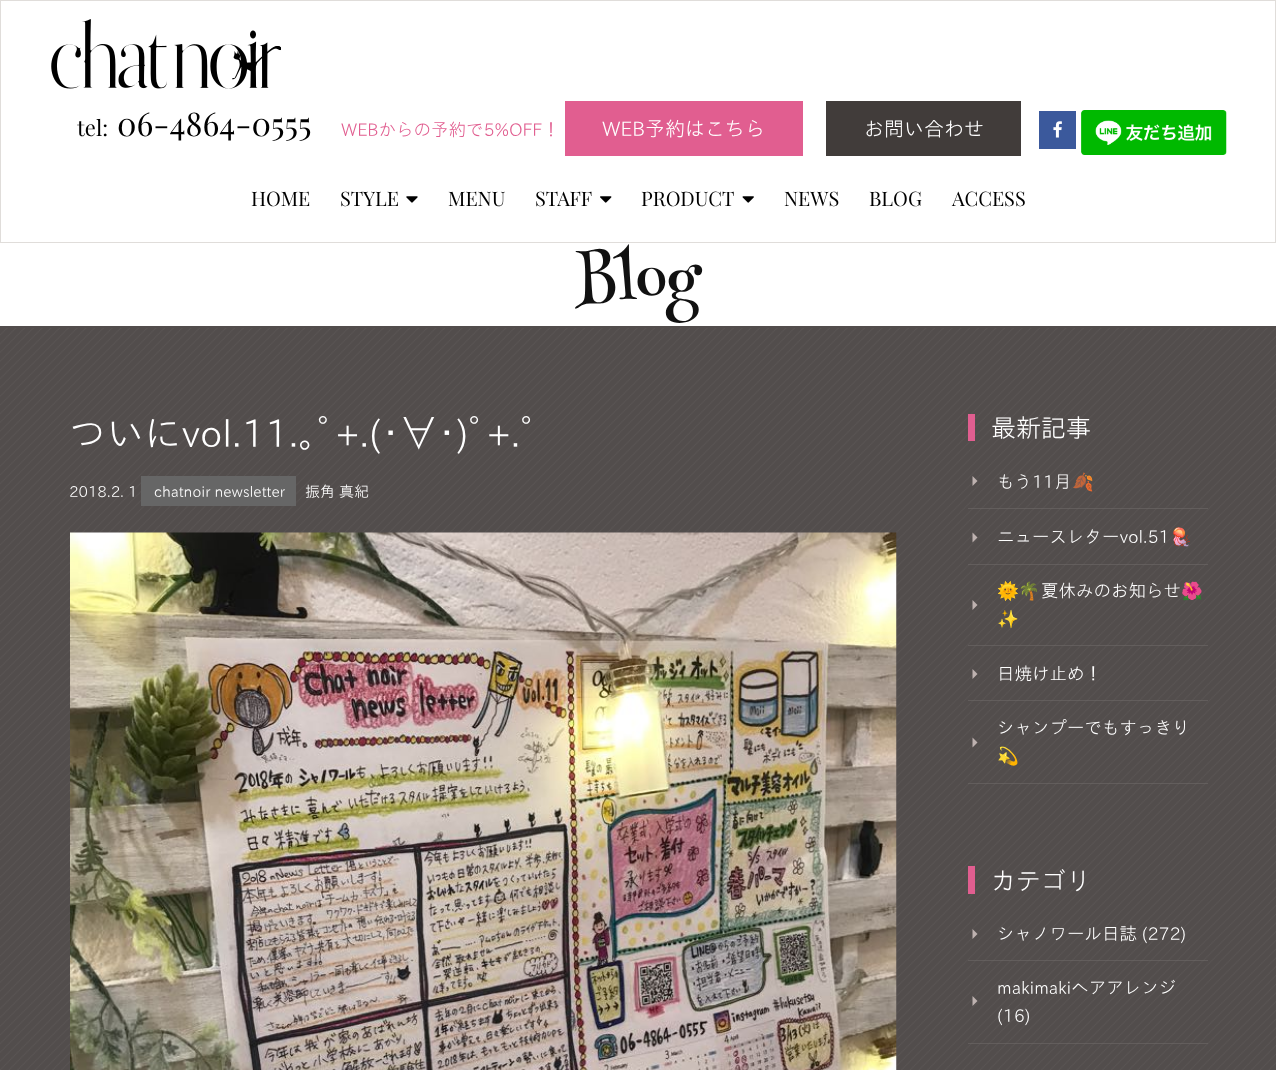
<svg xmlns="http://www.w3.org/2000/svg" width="1276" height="1070">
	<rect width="100%" height="100%" fill="#FFFFFF" />
	<rect x="0.5" y="0.5" width="1275" height="242" fill="none" stroke="#E0DDDA" />
	<image x="51" y="19" width="230" height="70" href="assets/img1.png" />
	<text x="77" y="136" font-family="Playfair Display" font-size="22" fill="#000000">tel:</text>
	<text x="117" y="136" font-family="Playfair Display" font-size="32.5" fill="#000000">06-4864-0555</text>
	<text x="341" y="136" font-family="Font" font-size="17.5" font-weight="200" fill="#E15E90">WEBからの予約で5%OFF！</text>
	<rect x="565" y="101" width="238" height="55" fill="#E15E90" />
	<text x="602" y="136" font-family="Font" font-size="20" font-weight="200" fill="#FFFFFF">WEB予約はこちら</text>
	<rect x="826" y="101" width="195" height="55" fill="#413C3A" />
	<text x="864" y="136" font-family="Font" font-size="20" font-weight="200" fill="#FFFFFF">お問い合わせ</text>
	<rect x="1039" y="111" width="37" height="38" fill="#3B599C" />
	<image x="1053" y="121" width="9" height="17" href="assets/img2.png" />
	<image x="1081" y="110" width="146" height="45" href="assets/img3.png" />
	<g font-family="Playfair Display" font-size="20" fill="#000000">
		<text x="251" y="206">HOME</text>
		<text x="340" y="206">STYLE</text>
	</g>
	<image x="406" y="196" width="12" height="7" href="assets/img4.png" />
	<g font-family="Playfair Display" font-size="20" fill="#000000">
		<text x="448" y="206">MENU</text>
		<text x="535" y="206">STAFF</text>
	</g>
	<image x="600" y="196" width="12" height="7" href="assets/img5.png" />
	<text x="641" y="206" font-family="Playfair Display" font-size="20" fill="#000000">PRODUCT</text>
	<image x="742" y="196" width="12" height="7" href="assets/img6.png" />
	<g font-family="Playfair Display" font-size="20" fill="#000000">
		<text x="784" y="206">NEWS</text>
		<text x="869" y="206">BLOG</text>
		<text x="952" y="206">ACCESS</text>
	</g>
	<text x="575" y="300" font-family="Henny Penny" font-size="60" fill="#111111">Blog</text>
	<rect x="0" y="326" width="1276" height="2" fill="#524D4C" />
	<image x="0" y="328" width="1276" height="742" href="assets/img7.png" />
	<text x="69" y="447" font-family="Font" font-size="37.5" font-weight="200" fill="#FFFFFF">ついにvol.11.｡ﾟ+.(･∀･)ﾟ+.ﾟ</text>
	<text x="69" y="497" font-family="Font" font-size="15" font-weight="200" fill="#FFFFFF">2018.2. 1</text>
	<rect x="141" y="476" width="155" height="30" fill="#666666" />
	<g font-family="Font" font-size="15" font-weight="200" fill="#FFFFFF">
		<text x="154" y="497">chatnoir newsletter</text>
		<text x="305" y="497">振角 真紀</text>
	</g>
	<image x="70" y="532" width="827" height="538" href="assets/img8.png" />
	<rect x="968" y="414" width="7" height="27" fill="#E15E90" />
	<text x="991" y="437" font-family="Font" font-size="25" font-weight="200" fill="#FFFFFF">最新記事</text>
	<rect x="968" y="508" width="240" height="1" fill="#6C6766" fill-opacity="0.64" />
	<path d="M972.5 486V476L977.5 481Z" fill="#BEB2B0" />
	<text x="997" y="488" font-family="Font" font-size="17.5" font-weight="200" fill="#FFFFFF">もう11月</text>
	<text x="1072" y="488" font-family="Noto Color Emoji" font-size="17.5" fill="#FFFFFF">🍂</text>
	<rect x="968" y="564" width="240" height="1" fill="#6C6766" fill-opacity="0.64" />
	<path d="M972.5 542.5V532.5L977.5 537.5Z" fill="#BEB2B0" />
	<text x="997" y="543" font-family="Font" font-size="17.5" font-weight="200" fill="#FFFFFF">ニュースレターvol.51</text>
	<text x="1170" y="543" font-family="Noto Color Emoji" font-size="17.5" fill="#FFFFFF">🪼</text>
	<rect x="968" y="645" width="240" height="1" fill="#6C6766" fill-opacity="0.64" />
	<text x="997" y="597" font-family="Noto Color Emoji" font-size="17.5" fill="#FFFFFF">🌞🌴</text>
	<text x="1041" y="597" font-family="Font" font-size="17.5" font-weight="200" fill="#FFFFFF">夏休みのお知らせ</text>
	<text x="1181" y="597" font-family="Noto Color Emoji" font-size="17.5" fill="#FFFFFF">🌺</text>
	<path d="M972.5 610V600L977.5 605Z" fill="#BEB2B0" />
	<text x="997" y="625" font-family="Noto Color Emoji" font-size="17.5" fill="#FFFFFF">✨</text>
	<rect x="968" y="700" width="240" height="1" fill="#6C6766" fill-opacity="0.64" />
	<path d="M972.5 679V669L977.5 674Z" fill="#BEB2B0" />
	<text x="997" y="680" font-family="Font" font-size="17.5" font-weight="200" fill="#FFFFFF">日焼け止め！</text>
	<rect x="968" y="783" width="240" height="1" fill="#6C6766" fill-opacity="0.64" />
	<text x="997" y="734" font-family="Font" font-size="17.5" font-weight="200" fill="#FFFFFF">シャンプーでもすっきり</text>
	<path d="M972.5 747.5V737.5L977.5 742.5Z" fill="#BEB2B0" />
	<text x="997" y="762" font-family="Noto Color Emoji" font-size="17.5" fill="#FFFFFF">💫</text>
	<rect x="968" y="866" width="7" height="28" fill="#E15E90" />
	<text x="991" y="890" font-family="Font" font-size="25" font-weight="200" fill="#FFFFFF">カテゴリ</text>
	<rect x="968" y="960" width="240" height="1" fill="#6C6766" fill-opacity="0.64" />
	<path d="M972.5 939V929L977.5 934Z" fill="#BEB2B0" />
	<text x="997" y="940" font-family="Font" font-size="17.5" font-weight="200" fill="#FFFFFF">シャノワール日誌 (272)</text>
	<rect x="968" y="1043" width="240" height="1" fill="#6C6766" fill-opacity="0.64" />
	<text x="997" y="994" font-family="Font" font-size="17.5" font-weight="200" fill="#FFFFFF">makimakiヘアアレンジ</text>
	<path d="M972.5 1006V996L977.5 1001Z" fill="#BEB2B0" />
	<text x="997" y="1022" font-family="Font" font-size="17.5" font-weight="200" fill="#FFFFFF">(16)</text>
</svg>
